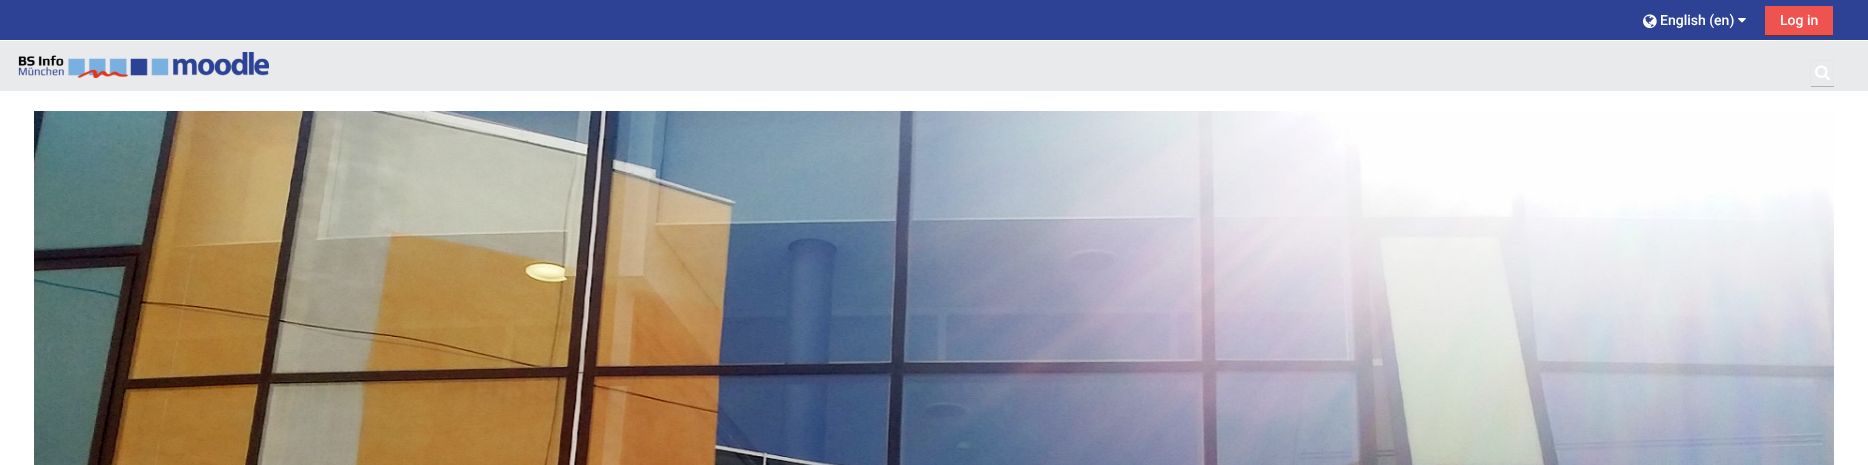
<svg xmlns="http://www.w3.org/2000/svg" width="1868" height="465">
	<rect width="100%" height="100%" fill="#FFFFFF" />
	<rect x="0" y="41" width="1868" height="50" fill="#E8EAEB" />
	<rect x="0" y="0" width="1868" height="40" fill="#2D4295" />
	<image x="1643" y="14" width="14" height="15" href="assets/img1.png" />
	<text x="1660" y="25" font-family="Roboto" font-size="14" font-weight="500" fill="#FFFFFF">English (en)</text>
	<image x="1738" y="18" width="8" height="5" href="assets/img2.png" />
	<rect x="1765" y="6" width="68" height="29" fill="#EF5350" />
	<rect x="1765" y="35" width="68" height="1" fill="#782A28" />
	<text x="1780" y="25" font-family="Roboto" font-size="14" font-weight="500" fill="#FFFFFF">Log in</text>
	<image x="18" y="52" width="251" height="26" href="assets/img3.png" />
	<rect x="1810" y="60" width="24" height="1" fill="#E6E6E6" />
	<rect x="1833" y="60" width="1" height="27" fill="#E6E6E6" />
	<rect x="1810" y="86" width="24" height="1" fill="#B3B3B3" />
	<rect x="1810" y="60" width="1" height="27" fill="#E6E6E6" />
	<image x="1815" y="65" width="15" height="16" href="assets/img4.png" />
	<image x="34" y="111" width="1800" height="354" href="assets/img5.png" />
</svg>
